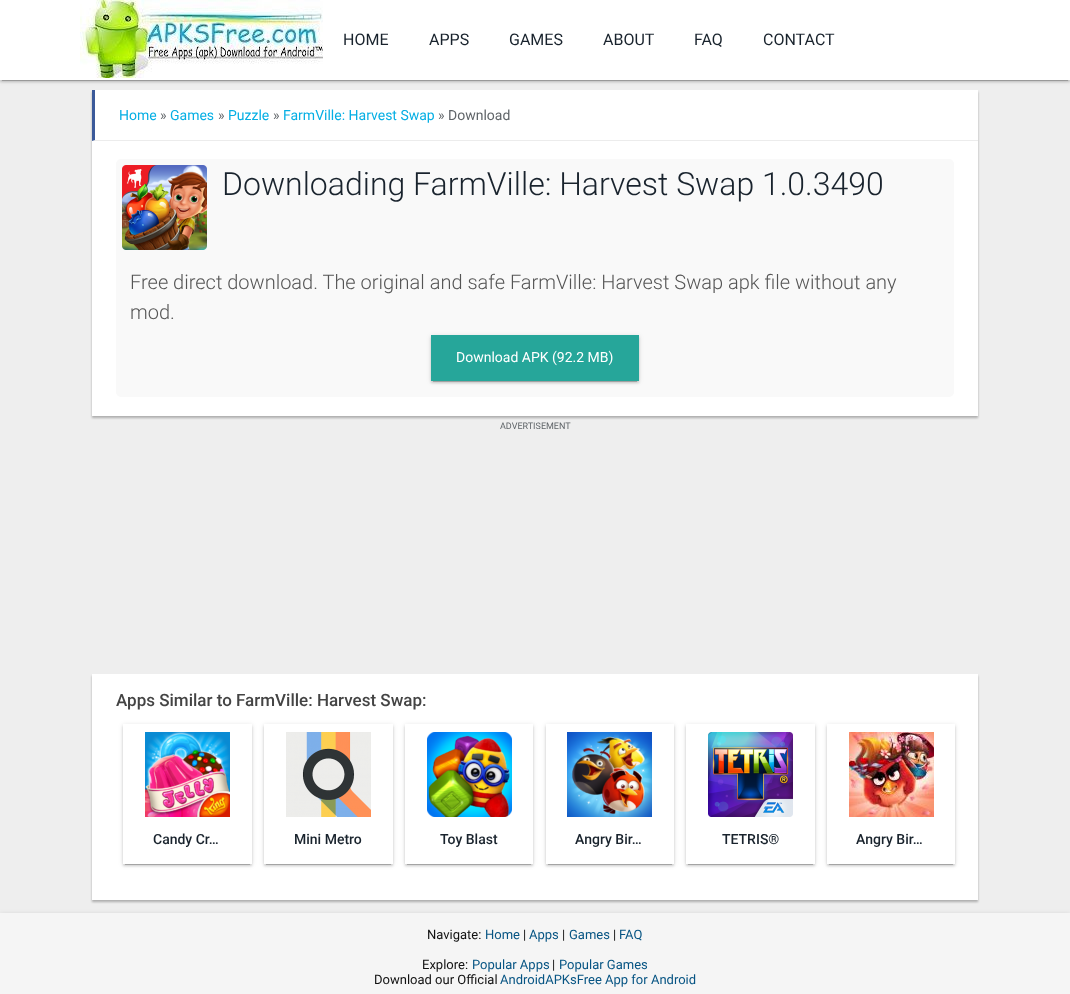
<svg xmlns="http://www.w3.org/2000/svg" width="1070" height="994">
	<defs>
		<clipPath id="clip1"><rect x="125" y="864" width="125" height="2" /></clipPath>
		<clipPath id="clip2"><path d="M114 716H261V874H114ZM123 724H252V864H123Z" clip-rule="evenodd" /></clipPath>
		<clipPath id="clip3"><path d="M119 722H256V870H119ZM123 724H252V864H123Z" clip-rule="evenodd" /></clipPath>
		<clipPath id="clip4"><rect x="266" y="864" width="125" height="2" /></clipPath>
		<clipPath id="clip5"><path d="M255 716H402V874H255ZM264 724H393V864H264Z" clip-rule="evenodd" /></clipPath>
		<clipPath id="clip6"><path d="M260 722H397V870H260ZM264 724H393V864H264Z" clip-rule="evenodd" /></clipPath>
		<clipPath id="clip7"><rect x="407" y="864" width="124" height="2" /></clipPath>
		<clipPath id="clip8"><path d="M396 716H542V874H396ZM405 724H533V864H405Z" clip-rule="evenodd" /></clipPath>
		<clipPath id="clip9"><path d="M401 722H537V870H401ZM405 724H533V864H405Z" clip-rule="evenodd" /></clipPath>
		<clipPath id="clip10"><rect x="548" y="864" width="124" height="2" /></clipPath>
		<clipPath id="clip11"><path d="M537 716H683V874H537ZM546 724H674V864H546Z" clip-rule="evenodd" /></clipPath>
		<clipPath id="clip12"><path d="M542 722H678V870H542ZM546 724H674V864H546Z" clip-rule="evenodd" /></clipPath>
		<clipPath id="clip13"><rect x="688" y="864" width="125" height="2" /></clipPath>
		<clipPath id="clip14"><path d="M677 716H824V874H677ZM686 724H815V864H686Z" clip-rule="evenodd" /></clipPath>
		<clipPath id="clip15"><path d="M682 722H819V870H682ZM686 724H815V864H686Z" clip-rule="evenodd" /></clipPath>
		<clipPath id="clip16"><rect x="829" y="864" width="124" height="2" /></clipPath>
		<clipPath id="clip17"><path d="M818 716H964V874H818ZM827 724H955V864H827Z" clip-rule="evenodd" /></clipPath>
		<clipPath id="clip18"><path d="M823 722H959V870H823ZM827 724H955V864H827Z" clip-rule="evenodd" /></clipPath>
	</defs>
	<rect width="100%" height="100%" fill="#EEEEEE" />
	<rect x="2" y="5" width="1066" height="76" fill="#000000" fill-opacity="0.2" filter="blur(0.5px)" />
	<rect x="0" y="1" width="1070" height="80" fill="#000000" fill-opacity="0.12" filter="blur(2.5px)" />
	<rect x="0" y="2" width="1070" height="80" fill="#000000" fill-opacity="0.14" filter="blur(1px)" />
	<rect x="0" y="0" width="1070" height="80" fill="#FFFFFF" />
	<image x="80" y="0" width="243" height="78" href="assets/img1.png" />
	<g font-family="Roboto" font-size="16" fill="#19232D">
		<text x="343" y="45">HOME</text>
		<text x="429" y="45">APPS</text>
		<text x="509" y="45">GAMES</text>
		<text x="603" y="45">ABOUT</text>
		<text x="694" y="45">FAQ</text>
		<text x="763" y="45">CONTACT</text>
	</g>
	<rect x="92" y="92" width="886" height="326" fill="#000000" fill-opacity="0.12" filter="blur(1px)" />
	<rect x="92" y="92" width="886" height="326" fill="#000000" fill-opacity="0.16" filter="blur(1px)" />
	<rect x="92" y="90" width="886" height="326" fill="#FFFFFF" />
	<path d="M978 141H92L95 140H978Z" fill="#ECECEC" />
	<path d="M92 141V90H95V140Z" fill="#3B5999" />
	<text x="119" y="120" font-family="Roboto" font-size="14" fill="#06AFE4">Home</text>
	<text x="160" y="120" font-family="Roboto" font-size="14" fill="#606569">»</text>
	<text x="170" y="120" font-family="Roboto" font-size="14" fill="#06AFE4">Games</text>
	<text x="218" y="120" font-family="Roboto" font-size="14" fill="#606569">»</text>
	<text x="228" y="120" font-family="Roboto" font-size="14" fill="#06AFE4">Puzzle</text>
	<text x="273" y="120" font-family="Roboto" font-size="14" fill="#606569">»</text>
	<text x="283" y="120" font-family="Roboto" font-size="14" fill="#06AFE4">FarmVille: Harvest Swap</text>
	<text x="438" y="120" font-family="Roboto" font-size="14" fill="#606569">» Download</text>
	<rect x="116" y="159" width="838" height="238" rx="5" fill="#F9F9F9" />
	<image x="122" y="165" width="85" height="85" href="assets/img2.png" />
	<text x="222" y="195" font-family="Roboto" font-size="32" font-weight="300" fill="#19232D">Downloading FarmVille: Harvest Swap 1.0.3490</text>
	<g font-family="Roboto" font-size="20" font-weight="300" fill="#555555">
		<text x="130" y="289">Free direct download. The original and safe FarmVille: Harvest Swap apk file without any</text>
		<text x="130" y="319">mod.</text>
	</g>
	<rect x="433" y="340" width="204" height="42" fill="#000000" fill-opacity="0.2" filter="blur(0.5px)" />
	<rect x="431" y="336" width="208" height="46" fill="#000000" fill-opacity="0.12" filter="blur(2.5px)" />
	<rect x="431" y="337" width="208" height="46" fill="#000000" fill-opacity="0.14" filter="blur(1px)" />
	<rect x="431" y="335" width="208" height="46" fill="#26A69A" />
	<text x="456" y="362" font-family="Roboto" font-size="14" fill="#FFFFFF">Download APK (92.2 MB)</text>
	<text x="500" y="429" font-family="Roboto" font-size="9" fill="#606569">ADVERTISEMENT</text>
	<rect x="92" y="676" width="886" height="226" fill="#000000" fill-opacity="0.12" filter="blur(1px)" />
	<rect x="92" y="676" width="886" height="226" fill="#000000" fill-opacity="0.16" filter="blur(1px)" />
	<rect x="92" y="674" width="886" height="226" fill="#FFFFFF" />
	<text x="116" y="706" font-family="Roboto" font-size="17" font-weight="500" fill="#444444">Apps Similar to FarmVille: Harvest Swap:</text>
	<g clip-path="url(#clip1)">
		<rect x="125" y="729" width="125" height="136" fill="#000000" fill-opacity="0.2" filter="blur(0.5px)" />
	</g>
	<g clip-path="url(#clip2)">
		<rect x="123" y="725" width="129" height="140" fill="#000000" fill-opacity="0.12" filter="blur(2.5px)" />
	</g>
	<g clip-path="url(#clip3)">
		<rect x="123" y="726" width="129" height="140" fill="#000000" fill-opacity="0.14" filter="blur(1px)" />
	</g>
	<image x="145" y="732" width="85" height="85" href="assets/img3.png" />
	<text x="153" y="844" font-family="Roboto" font-size="14" font-weight="500" fill="#19232D">Candy Cr…</text>
	<g clip-path="url(#clip4)">
		<rect x="266" y="729" width="125" height="136" fill="#000000" fill-opacity="0.2" filter="blur(0.5px)" />
	</g>
	<g clip-path="url(#clip5)">
		<rect x="264" y="725" width="129" height="140" fill="#000000" fill-opacity="0.12" filter="blur(2.5px)" />
	</g>
	<g clip-path="url(#clip6)">
		<rect x="264" y="726" width="129" height="140" fill="#000000" fill-opacity="0.14" filter="blur(1px)" />
	</g>
	<image x="286" y="732" width="85" height="85" href="assets/img4.png" />
	<text x="294" y="844" font-family="Roboto" font-size="14" font-weight="500" fill="#19232D">Mini Metro</text>
	<g clip-path="url(#clip7)">
		<rect x="407" y="729" width="124" height="136" fill="#000000" fill-opacity="0.2" filter="blur(0.5px)" />
	</g>
	<g clip-path="url(#clip8)">
		<rect x="405" y="725" width="128" height="140" fill="#000000" fill-opacity="0.12" filter="blur(2.5px)" />
	</g>
	<g clip-path="url(#clip9)">
		<rect x="405" y="726" width="128" height="140" fill="#000000" fill-opacity="0.14" filter="blur(1px)" />
	</g>
	<image x="427" y="732" width="85" height="85" href="assets/img5.png" />
	<text x="440" y="844" font-family="Roboto" font-size="14" font-weight="500" fill="#19232D">Toy Blast</text>
	<g clip-path="url(#clip10)">
		<rect x="548" y="729" width="124" height="136" fill="#000000" fill-opacity="0.2" filter="blur(0.5px)" />
	</g>
	<g clip-path="url(#clip11)">
		<rect x="546" y="725" width="128" height="140" fill="#000000" fill-opacity="0.12" filter="blur(2.5px)" />
	</g>
	<g clip-path="url(#clip12)">
		<rect x="546" y="726" width="128" height="140" fill="#000000" fill-opacity="0.14" filter="blur(1px)" />
	</g>
	<image x="567" y="732" width="85" height="85" href="assets/img6.png" />
	<text x="575" y="844" font-family="Roboto" font-size="14" font-weight="500" fill="#19232D">Angry Bir…</text>
	<g clip-path="url(#clip13)">
		<rect x="688" y="729" width="125" height="136" fill="#000000" fill-opacity="0.2" filter="blur(0.5px)" />
	</g>
	<g clip-path="url(#clip14)">
		<rect x="686" y="725" width="129" height="140" fill="#000000" fill-opacity="0.12" filter="blur(2.5px)" />
	</g>
	<g clip-path="url(#clip15)">
		<rect x="686" y="726" width="129" height="140" fill="#000000" fill-opacity="0.14" filter="blur(1px)" />
	</g>
	<image x="708" y="732" width="85" height="85" href="assets/img7.png" />
	<text x="722" y="844" font-family="Roboto" font-size="14" font-weight="500" fill="#19232D">TETRIS®</text>
	<g clip-path="url(#clip16)">
		<rect x="829" y="729" width="124" height="136" fill="#000000" fill-opacity="0.2" filter="blur(0.5px)" />
	</g>
	<g clip-path="url(#clip17)">
		<rect x="827" y="725" width="128" height="140" fill="#000000" fill-opacity="0.12" filter="blur(2.5px)" />
	</g>
	<g clip-path="url(#clip18)">
		<rect x="827" y="726" width="128" height="140" fill="#000000" fill-opacity="0.14" filter="blur(1px)" />
	</g>
	<image x="849" y="732" width="85" height="85" href="assets/img8.png" />
	<text x="856" y="844" font-family="Roboto" font-size="14" font-weight="500" fill="#19232D">Angry Bir…</text>
	<rect x="0" y="914" width="1070" height="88" fill="#000000" fill-opacity="0.12" filter="blur(2.5px)" />
	<rect x="0" y="913" width="1070" height="81" fill="#F5F5F5" />
	<text x="427" y="939" font-family="Roboto" font-size="13" fill="#111111">Navigate:</text>
	<text x="485" y="939" font-family="Roboto" font-size="13" fill="#065483">Home</text>
	<text x="523" y="939" font-family="Roboto" font-size="13" fill="#111111">|</text>
	<text x="529" y="939" font-family="Roboto" font-size="13" fill="#065483">Apps</text>
	<text x="562" y="939" font-family="Roboto" font-size="13" fill="#111111">|</text>
	<text x="569" y="939" font-family="Roboto" font-size="13" fill="#065483">Games</text>
	<text x="613" y="939" font-family="Roboto" font-size="13" fill="#111111">|</text>
	<text x="619" y="939" font-family="Roboto" font-size="13" fill="#065483">FAQ</text>
	<text x="422" y="969" font-family="Roboto" font-size="13" fill="#111111">Explore:</text>
	<text x="472" y="969" font-family="Roboto" font-size="13" fill="#065483">Popular Apps</text>
	<text x="552" y="969" font-family="Roboto" font-size="13" fill="#111111">|</text>
	<text x="559" y="969" font-family="Roboto" font-size="13" fill="#065483">Popular Games</text>
	<text x="374" y="984" font-family="Roboto" font-size="13" fill="#111111">Download our Official</text>
	<text x="500" y="984" font-family="Roboto" font-size="13" fill="#065483">AndroidAPKsFree App for Android</text>
</svg>
